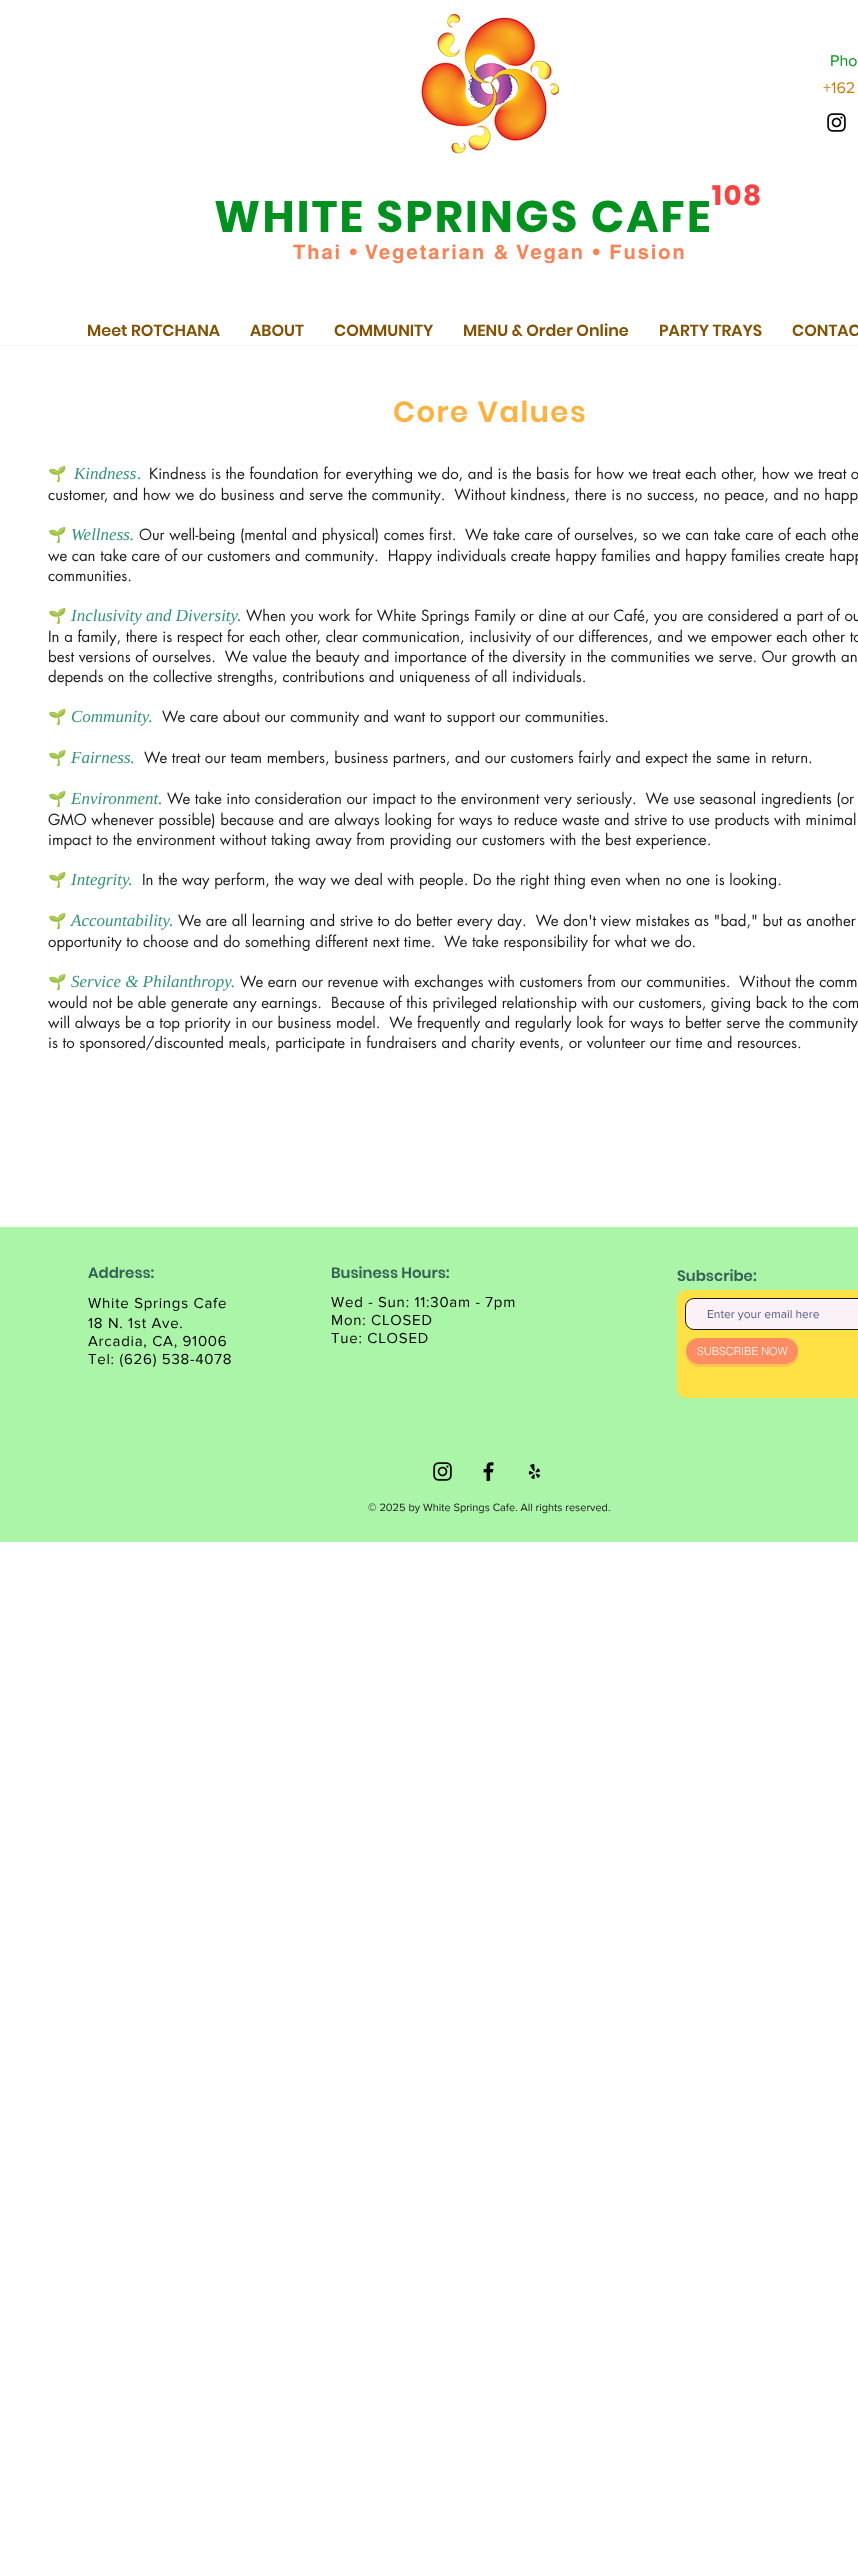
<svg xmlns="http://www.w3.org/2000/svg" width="858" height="2555">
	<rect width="100%" height="100%" fill="#FFFFFF" />
	<image x="421" y="13" width="139" height="141" href="assets/img1.png" />
	<text x="830" y="66" font-family="'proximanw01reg'" font-size="16" fill="#009416">Pho</text>
	<text x="823" y="93" font-family="'proximanw01reg'" font-size="16" fill="#C77B08">+162</text>
	<image x="827" y="113" width="19" height="19" href="assets/img2.png" />
	<text x="712" y="205" font-family="Poppins" font-size="28" font-weight="700" letter-spacing="1.5" fill="#FF4040">108</text>
	<text x="214" y="232" font-family="Poppins" font-size="44" font-weight="700" letter-spacing="2.25" fill="#00911F">WHITE SPRINGS CAFE</text>
	<text x="293" y="259" font-family="helvetica" font-size="20" font-weight="700" letter-spacing="2" fill="#FF8052">Thai • Vegetarian &amp; Vegan • Fusion</text>
	<g font-family="Poppins" font-size="16" font-weight="600" fill="#855000">
		<text x="87" y="336">Meet ROTCHANA</text>
		<text x="250" y="336">ABOUT</text>
		<text x="334" y="336">COMMUNITY</text>
		<text x="463" y="336">MENU &amp; Order Online</text>
		<text x="659" y="336">PARTY TRAYS</text>
		<text x="792" y="336">CONTAC</text>
	</g>
	<rect x="0" y="345" width="858" height="1" fill="#F3F3F3" />
	<text x="393" y="422" font-family="Poppins" font-size="29" font-weight="600" letter-spacing="1.5" fill="#FFB13D">Core Values</text>
	<text x="48" y="479" font-family="Noto Color Emoji" font-size="15" fill="#191919">🌱</text>
	<text x="74" y="479" font-family="Liberation Serif" font-size="17" font-style="italic" fill="#329476">Kindness</text>
	<text x="137" y="479" font-family="Liberation Serif" font-size="17" fill="#329476">.</text>
	<g font-family="futura" font-size="15" fill="#191919">
		<text x="149" y="479">Kindness is the foundation for everything we do, and is the basis for how we treat each other, how we treat o</text>
		<text x="48" y="500" xml:space="preserve">customer, and how we do business and serve the community.  Without kindness, there is no success, no peace, and no happ</text>
	</g>
	<text x="48" y="540" font-family="Noto Color Emoji" font-size="15" fill="#191919">🌱</text>
	<text x="71" y="540" font-family="Liberation Serif" font-size="17" font-style="italic" fill="#329476">Wellness.</text>
	<g font-family="futura" font-size="15" fill="#191919">
		<text x="139" y="540" xml:space="preserve">Our well-being (mental and physical) comes first.  We take care of ourselves, so we can take care of each othe</text>
		<text x="48" y="561" xml:space="preserve">we can take care of our customers and community.  Happy individuals create happy families and happy families create happ</text>
		<text x="48" y="581">communities.</text>
	</g>
	<text x="48" y="621" font-family="Noto Color Emoji" font-size="15" fill="#191919">🌱</text>
	<text x="71" y="621" font-family="Liberation Serif" font-size="17" font-style="italic" fill="#329476">Inclusivity and Diversity.</text>
	<g font-family="futura" font-size="15" fill="#191919">
		<text x="246" y="621">When you work for White Springs Family or dine at our Café, you are considered a part of ou</text>
		<text x="48" y="642">In a family, there is respect for each other, clear communication, inclusivity of our differences, and we empower each other to</text>
		<text x="48" y="662" xml:space="preserve">best versions of ourselves.  We value the beauty and importance of the diversity in the communities we serve. Our growth an</text>
		<text x="48" y="682">depends on the collective strengths, contributions and uniqueness of all individuals.</text>
	</g>
	<text x="48" y="722" font-family="Noto Color Emoji" font-size="15" fill="#191919">🌱</text>
	<text x="71" y="722" font-family="Liberation Serif" font-size="17" font-style="italic" fill="#329476">Community.</text>
	<text x="162" y="722" font-family="futura" font-size="15" fill="#191919">We care about our community and want to support our communities.</text>
	<text x="48" y="763" font-family="Noto Color Emoji" font-size="15" fill="#191919">🌱</text>
	<text x="71" y="763" font-family="Liberation Serif" font-size="17" font-style="italic" fill="#329476">Fairness.</text>
	<text x="144" y="763" font-family="futura" font-size="15" fill="#191919">We treat our team members, business partners, and our customers fairly and expect the same in return.</text>
	<text x="48" y="804" font-family="Noto Color Emoji" font-size="15" fill="#191919">🌱</text>
	<text x="71" y="804" font-family="Liberation Serif" font-size="17" font-style="italic" fill="#329476">Environment.</text>
	<g font-family="futura" font-size="15" fill="#191919">
		<text x="167" y="804" xml:space="preserve">We take into consideration our impact to the environment very seriously.  We use seasonal ingredients (or</text>
		<text x="48" y="825">GMO whenever possible) because and are always looking for ways to reduce waste and strive to use products with minimal</text>
		<text x="48" y="845">impact to the environment without taking away from providing our customers with the best experience.</text>
	</g>
	<text x="48" y="885" font-family="Noto Color Emoji" font-size="15" fill="#191919">🌱</text>
	<text x="71" y="885" font-family="Liberation Serif" font-size="17" font-style="italic" fill="#329476">Integrity.</text>
	<text x="142" y="885" font-family="futura" font-size="15" fill="#191919">In the way perform, the way we deal with people. Do the right thing even when no one is looking.</text>
	<text x="48" y="926" font-family="Noto Color Emoji" font-size="15" fill="#191919">🌱</text>
	<text x="71" y="926" font-family="Liberation Serif" font-size="17" font-style="italic" fill="#329476">Accountability.</text>
	<g font-family="futura" font-size="15" fill="#191919">
		<text x="178" y="926" xml:space="preserve">We are all learning and strive to do better every day.  We don't view mistakes as "bad," but as another</text>
		<text x="48" y="947" xml:space="preserve">opportunity to choose and do something different next time.  We take responsibility for what we do.</text>
	</g>
	<text x="48" y="987" font-family="Noto Color Emoji" font-size="15" fill="#191919">🌱</text>
	<text x="71" y="987" font-family="Liberation Serif" font-size="17" font-style="italic" fill="#329476">Service &amp; Philanthropy.</text>
	<g font-family="futura" font-size="15" fill="#191919">
		<text x="240" y="987" xml:space="preserve">We earn our revenue with exchanges with customers from our communities.  Without the comm</text>
		<text x="48" y="1008" xml:space="preserve">would not be able generate any earnings.  Because of this privileged relationship with our customers, giving back to the com</text>
		<text x="48" y="1028" xml:space="preserve">will always be a top priority in our business model.  We frequently and regularly look for ways to better serve the community</text>
		<text x="48" y="1048">is to sponsored/discounted meals, participate in fundraisers and charity events, or volunteer our time and resources.</text>
	</g>
	<rect x="0" y="1227" width="858" height="315" fill="#ABF5A9" />
	<text x="88" y="1278" font-family="Poppins" font-size="15" font-weight="600" fill="#376356">Address:</text>
	<g font-family="'proximanw01reg'" font-size="15" letter-spacing="0.75" fill="#000000">
		<text x="88" y="1308">White Springs Cafe</text>
		<text x="88" y="1328">18 N. 1st Ave.</text>
		<text x="88" y="1346">Arcadia, CA, 91006</text>
		<text x="88" y="1364">Tel: (626) 538-4078</text>
	</g>
	<text x="331" y="1278" font-family="Poppins" font-size="15" font-weight="600" fill="#376356">Business Hours:</text>
	<g font-family="'proximanw01reg'" font-size="15" letter-spacing="0.75" fill="#000000">
		<text x="331" y="1307">Wed - Sun: 11:30am - 7pm</text>
		<text x="331" y="1325">Mon: CLOSED</text>
		<text x="331" y="1343">Tue: CLOSED</text>
	</g>
	<text x="677" y="1281" font-family="Poppins" font-size="15" font-weight="600" fill="#376356">Subscribe:</text>
	<rect x="677" y="1290" width="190" height="108" rx="9" fill="#FFE045" />
	<rect x="685.5" y="1298.5" width="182" height="31" rx="8.5" fill="#FBF2F7" stroke="#191919" />
	<text x="707" y="1318" font-family="'proximanw01reg'" font-size="12" fill="#545885">Enter your email here</text>
	<path d="M686 1352V1354C686 1361 692 1367 699 1367H785C792 1367 798 1361 798 1354V1352C797 1359 792 1364 785 1364H699C692 1364 687 1359 686 1352Z" fill="#FFC34F" />
	<rect x="686" y="1338" width="112" height="26" rx="13" fill="#FF8C62" />
	<text x="697" y="1355" font-family="helvetica" font-size="11" font-weight="300" fill="#FFFFFF">SUBSCRIBE NOW</text>
	<image x="433" y="1462" width="19" height="19" href="assets/img3.png" />
	<image x="483" y="1462" width="11" height="20" href="assets/img4.png" />
	<image x="528" y="1463" width="13" height="17" href="assets/img5.png" />
	<text x="368" y="1511" font-family="'proximanw01reg'" font-size="11" fill="#191919">© 2025 by White Springs Cafe. All rights reserved.</text>
</svg>
